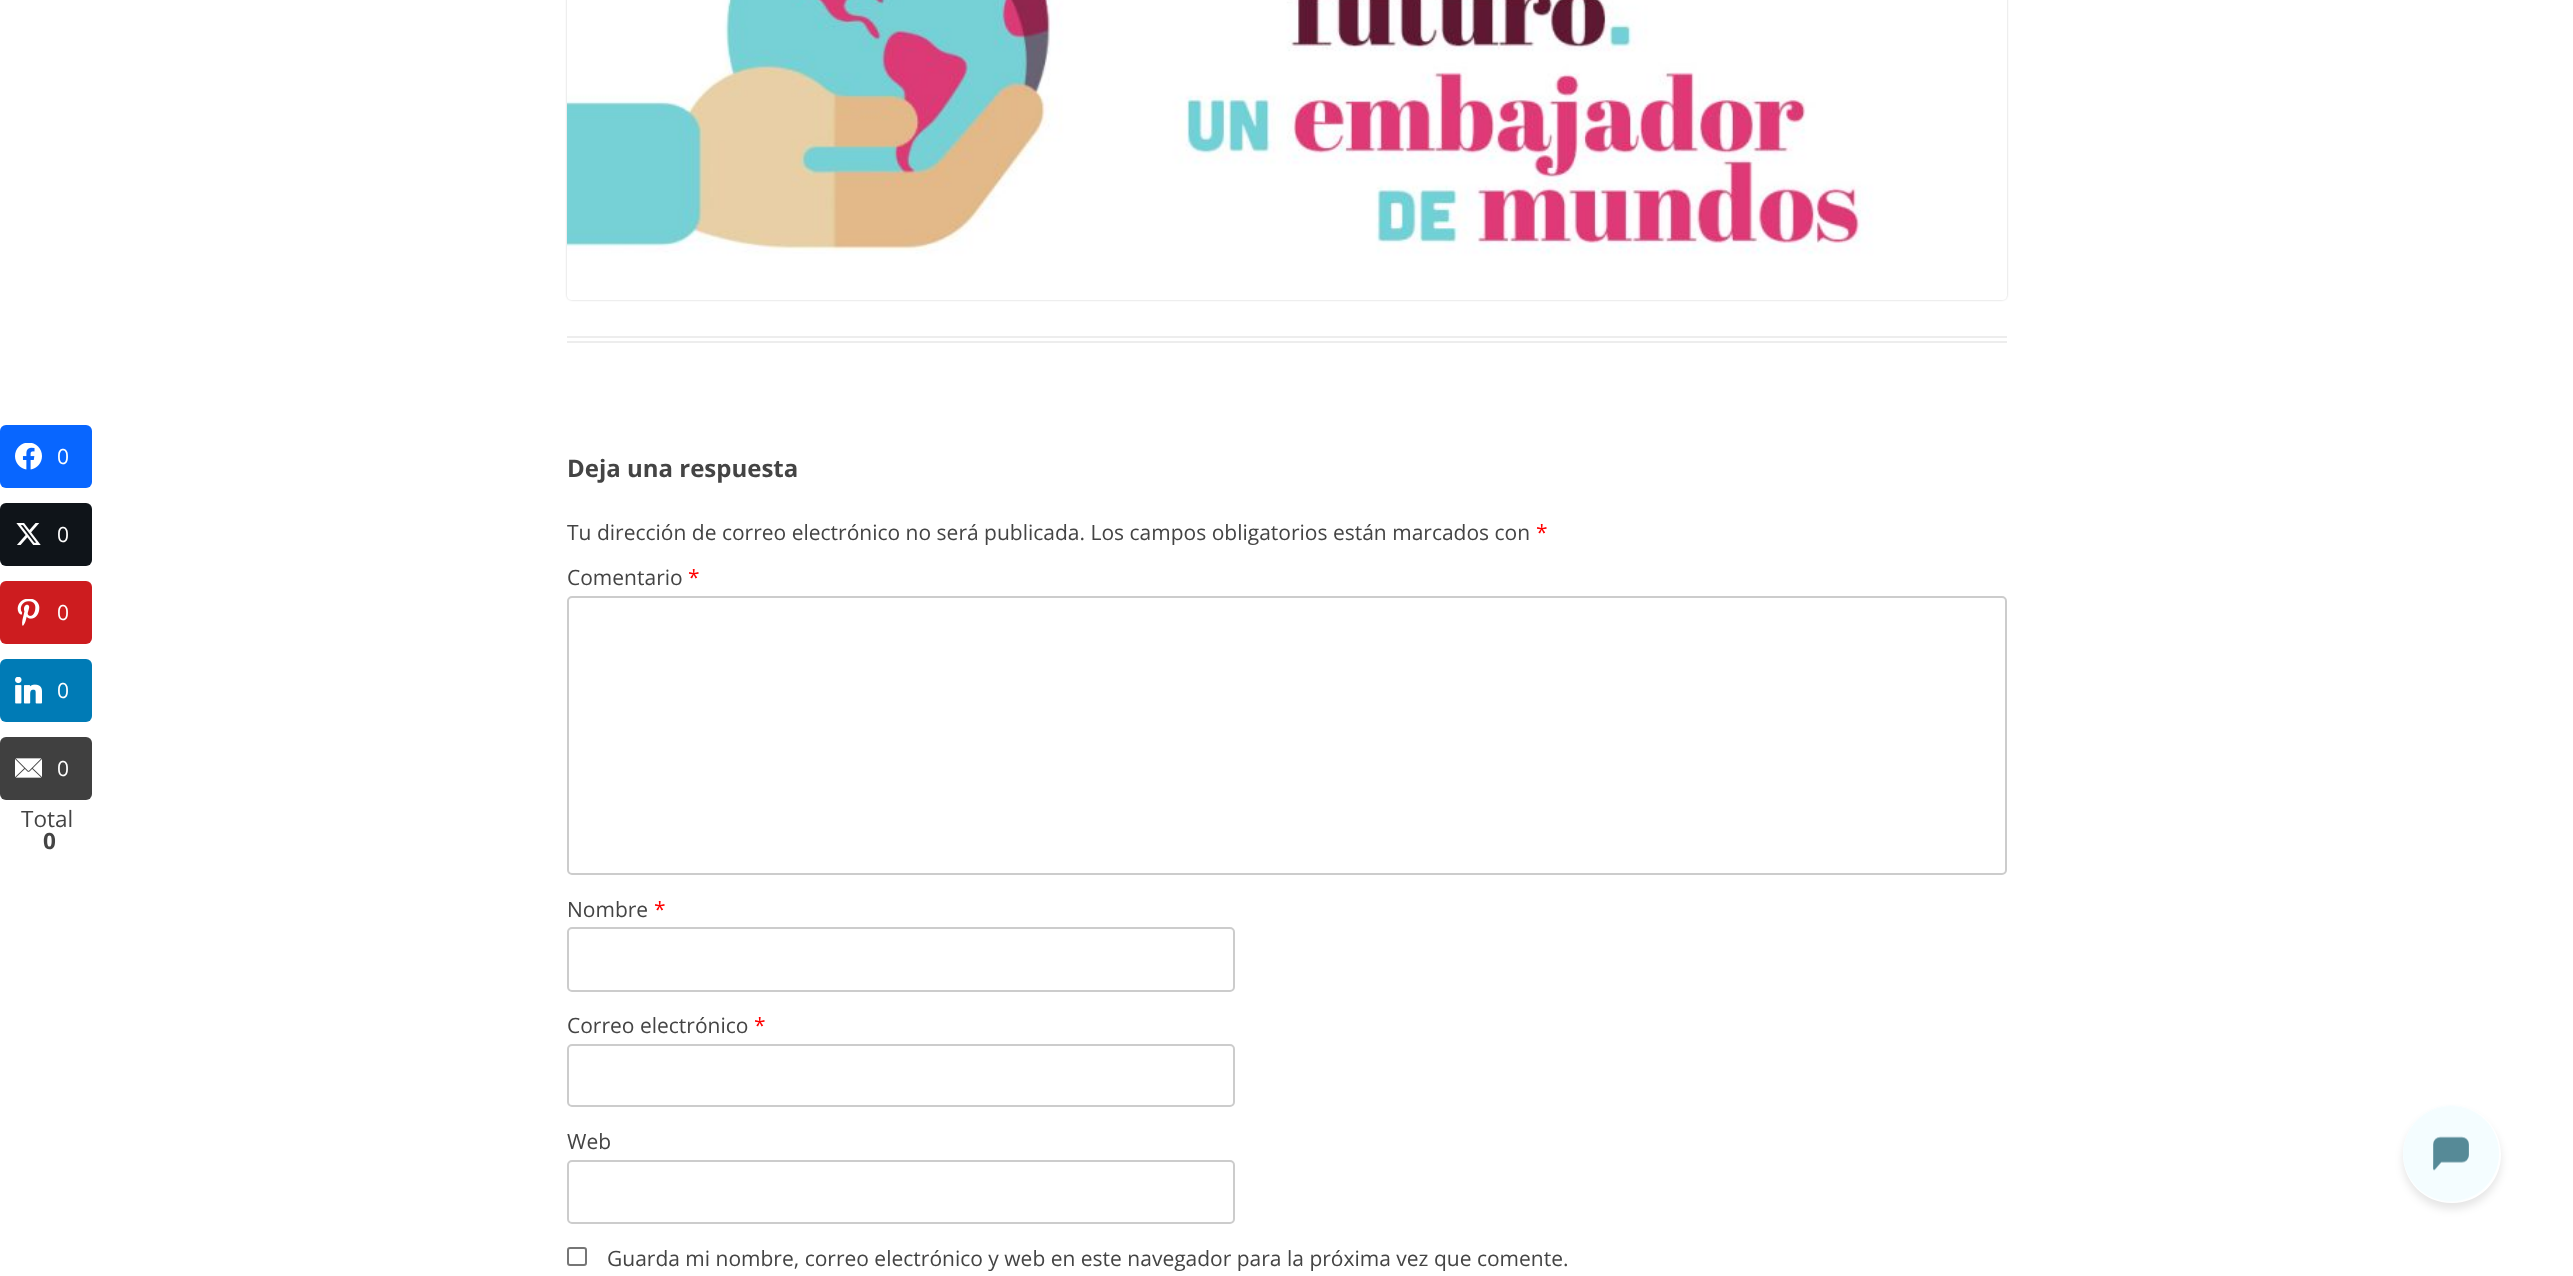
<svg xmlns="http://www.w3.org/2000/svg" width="2573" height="1276">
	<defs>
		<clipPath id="clip1"><path d="M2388 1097H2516V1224H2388ZM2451.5 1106H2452.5C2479.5 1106 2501 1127.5 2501 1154.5C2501 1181.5 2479.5 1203 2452.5 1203H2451.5C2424.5 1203 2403 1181.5 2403 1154.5C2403 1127.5 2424.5 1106 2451.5 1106Z" clip-rule="evenodd" /></clipPath>
	</defs>
	<rect width="100%" height="100%" fill="#FFFFFF" />
	<rect x="0" y="425" width="92" height="63" rx="6" fill="#0866FF" />
	<image x="15" y="443" width="27" height="27" href="assets/img1.png" />
	<text x="57" y="464" font-family="Open Sans" font-size="21" fill="#FFFFFF">0</text>
	<rect x="0" y="503" width="92" height="63" rx="6" fill="#0F1419" />
	<image x="16" y="523" width="25" height="22" href="assets/img2.png" />
	<text x="57" y="542" font-family="Open Sans" font-size="21" fill="#FFFFFF">0</text>
	<rect x="0" y="581" width="92" height="63" rx="6" fill="#CD1C1F" />
	<image x="17" y="599" width="23" height="27" href="assets/img3.png" />
	<text x="57" y="620" font-family="Open Sans" font-size="21" fill="#FFFFFF">0</text>
	<rect x="0" y="659" width="92" height="63" rx="6" fill="#007BB6" />
	<image x="15" y="677" width="27" height="27" href="assets/img4.png" />
	<text x="57" y="698" font-family="Open Sans" font-size="21" fill="#FFFFFF">0</text>
	<rect x="0" y="737" width="92" height="63" rx="6" fill="#404040" />
	<image x="15" y="758" width="27" height="20" href="assets/img5.png" />
	<text x="57" y="776" font-family="Open Sans" font-size="21" fill="#FFFFFF">0</text>
	<text x="21" y="827" font-family="Open Sans" font-size="22.5" fill="#444444">Total</text>
	<text x="43" y="849" font-family="Open Sans" font-size="22.5" font-weight="700" fill="#444444">0</text>
	<rect x="567" y="336" width="1440" height="2" fill="#EDEDED" />
	<rect x="567" y="341" width="1440" height="2" fill="#EDEDED" />
	<rect x="567" y="-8" width="1440" height="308" rx="5" fill="#000000" fill-opacity="0.2" filter="blur(1px)" />
	<image x="567" y="0" width="1440" height="300" href="assets/img6.png" />
	<text x="567" y="477" font-family="Open Sans" font-size="24" font-weight="700" fill="#444444">Deja una respuesta</text>
	<text x="567" y="540" font-family="Open Sans" font-size="21" fill="#444444">Tu dirección de correo electrónico no será publicada. Los campos obligatorios están marcados con</text>
	<text x="1536" y="540" font-family="Open Sans" font-size="21" fill="#FF0000">*</text>
	<text x="567" y="585" font-family="Open Sans" font-size="21" fill="#444444">Comentario</text>
	<text x="688" y="585" font-family="Open Sans" font-size="21" fill="#FF0000">*</text>
	<rect x="568" y="597" width="1438" height="277" rx="4" fill="none" stroke="#CCCCCC" stroke-width="2" />
	<text x="567" y="917" font-family="Open Sans" font-size="21" fill="#444444">Nombre</text>
	<text x="654" y="917" font-family="Open Sans" font-size="21" fill="#FF0000">*</text>
	<rect x="568" y="928" width="666" height="63" rx="4" fill="none" stroke="#CCCCCC" stroke-width="2" />
	<text x="567" y="1033" font-family="Open Sans" font-size="21" fill="#444444">Correo electrónico</text>
	<text x="754" y="1033" font-family="Open Sans" font-size="21" fill="#FF0000">*</text>
	<rect x="568" y="1045" width="666" height="61" rx="4" fill="none" stroke="#CCCCCC" stroke-width="2" />
	<text x="567" y="1149" font-family="Open Sans" font-size="21" fill="#444444">Web</text>
	<rect x="568" y="1161" width="666" height="62" rx="4" fill="none" stroke="#CCCCCC" stroke-width="2" />
	<rect x="568" y="1248" width="18" height="17" rx="2" fill="none" stroke="#767676" stroke-width="2" />
	<text x="607" y="1266" font-family="Open Sans" font-size="21" fill="#444444">Guarda mi nombre, correo electrónico y web en este navegador para la próxima vez que comente.</text>
	<g clip-path="url(#clip1)">
		<rect x="2403" y="1112" width="98" height="97" rx="48.5" fill="#000000" fill-opacity="0.1" filter="blur(4.5px)" />
	</g>
	<image x="2403" y="1105" width="96" height="97" href="assets/img7.png" />
</svg>
